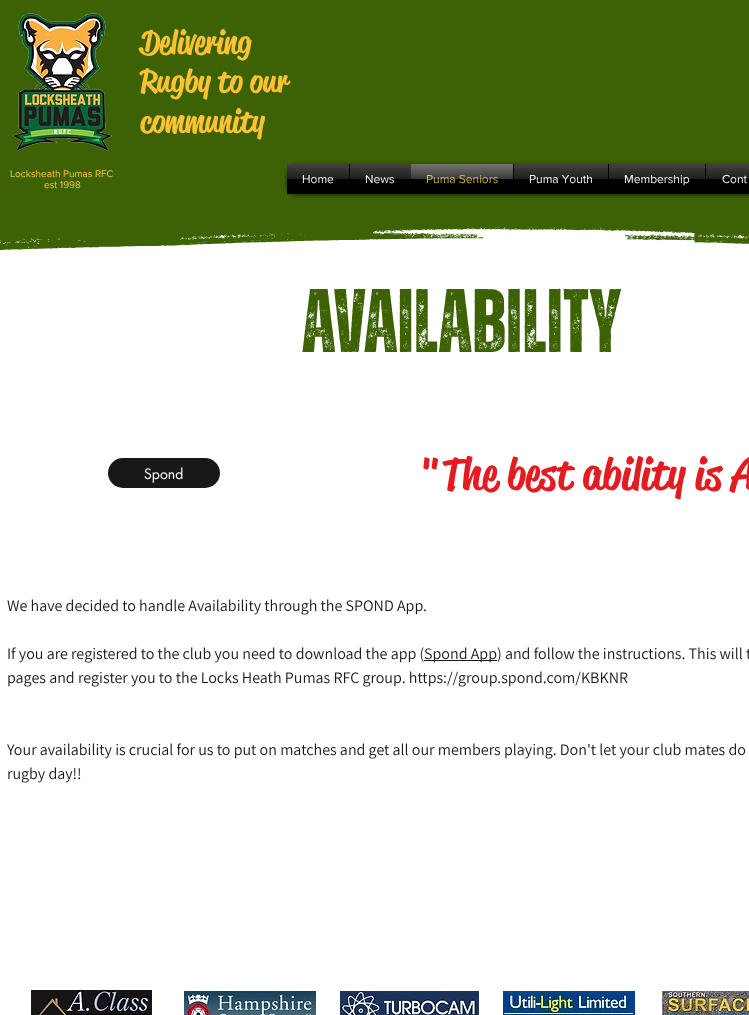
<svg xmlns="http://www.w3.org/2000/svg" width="749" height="1015">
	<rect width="100%" height="100%" fill="#FFFFFF" />
	<rect x="0" y="0" width="749" height="205" fill="#3D6203" />
	<image x="13" y="13" width="99" height="139" href="assets/img1.png" />
	<g font-family="'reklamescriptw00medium'" font-size="32" font-weight="500" fill="#FFC233">
		<text x="140" y="53">Delivering</text>
		<text x="140" y="92">Rugby to our</text>
		<text x="140" y="132">community</text>
	</g>
	<g font-family="'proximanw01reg'" font-size="10" fill="#FFC233">
		<text x="10" y="177">Locksheath Pumas RFC</text>
		<text x="44" y="188">est 1998</text>
	</g>
	<rect x="287" y="165" width="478" height="30" rx="10" fill="#000000" fill-opacity="0.6" filter="blur(2px)" />
	<rect x="410" y="164" width="339" height="30" fill="#000000" />
	<image x="410" y="164" width="103" height="15" href="assets/img2.png" />
	<rect x="287" y="164" width="123" height="30" fill="#000000" />
	<text x="302" y="183" font-family="'proximanw01reg'" font-size="12" fill="#FFFFFF">Home</text>
	<image x="287" y="164" width="62" height="19" href="assets/img3.png" />
	<text x="365" y="183" font-family="'proximanw01reg'" font-size="12" fill="#FFFFFF">News</text>
	<image x="350" y="164" width="60" height="19" href="assets/img4.png" />
	<text x="426" y="183" font-family="'proximanw01reg'" font-size="12" fill="#E0B834">Puma Seniors</text>
	<image x="411" y="164" width="102" height="19" href="assets/img5.png" />
	<text x="529" y="183" font-family="'proximanw01reg'" font-size="12" fill="#FFFFFF">Puma Youth</text>
	<image x="514" y="164" width="94" height="19" href="assets/img6.png" />
	<text x="624" y="183" font-family="'proximanw01reg'" font-size="12" fill="#FFFFFF">Membership</text>
	<image x="609" y="164" width="96" height="21" href="assets/img7.png" />
	<text x="722" y="183" font-family="'proximanw01reg'" font-size="12" fill="#FFFFFF">Cont</text>
	<image x="706" y="164" width="43" height="19" href="assets/img8.png" />
	<image x="0" y="205" width="749" height="45" href="assets/img9.png" />
	<text x="302" y="352" font-family="'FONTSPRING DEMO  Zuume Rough'" font-size="90" font-weight="700" fill="#3D6203">Availability</text>
	<rect x="108" y="458" width="112" height="30" rx="15" fill="#181818" />
	<text x="144" y="479" font-family="futura" font-size="14" fill="#FFFFFF">Spond</text>
	<text x="420" y="489" font-family="'reklamescriptw00medium'" font-size="44" font-weight="500" fill="#E21C21">"The best ability is A</text>
	<g font-family="Assistant" font-size="16" fill="#181818">
		<text x="7" y="611">We have decided to handle Availability through the SPOND App.</text>
		<text x="7" y="659">If you are registered to the club you need to download the app (</text>
	</g>
	<rect x="424" y="660" width="73" height="1" fill="#181818" />
	<g font-family="Assistant" font-size="16" fill="#181818">
		<text x="424" y="659">Spond App) and follow the instructions. This will t</text>
		<text x="7" y="683">pages and register you to the Locks Heath Pumas RFC group. https://group.spond.com/KBKNR</text>
		<text x="7" y="755">Your availability is crucial for us to put on matches and get all our members playing. Don't let your club mates do</text>
		<text x="7" y="779">rugby day!!</text>
	</g>
	<image x="31" y="990" width="121" height="25" href="assets/img10.png" />
	<image x="184" y="991" width="132" height="24" href="assets/img11.png" />
	<image x="340" y="991" width="139" height="24" href="assets/img12.png" />
	<image x="503" y="991" width="132" height="24" href="assets/img13.png" />
	<image x="662" y="991" width="87" height="24" href="assets/img14.png" />
</svg>
